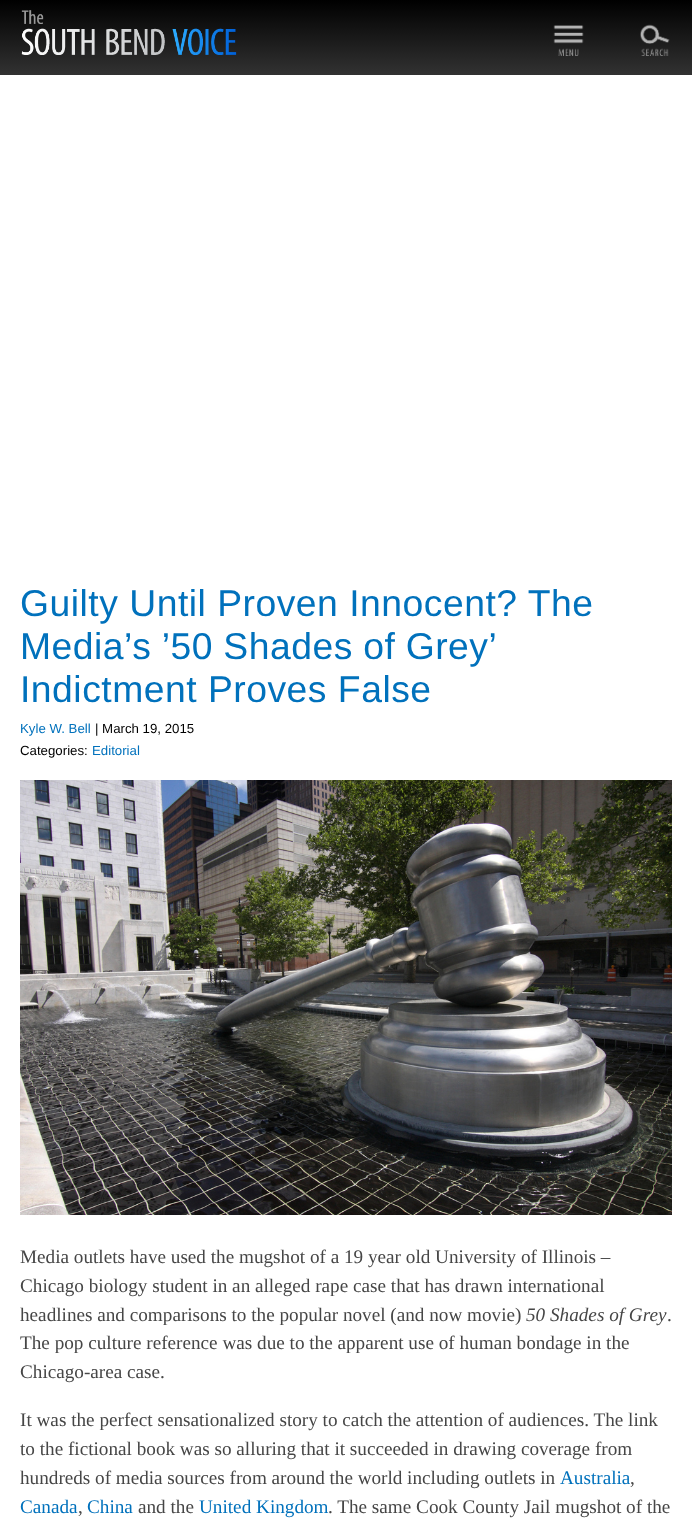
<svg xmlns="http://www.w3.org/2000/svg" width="692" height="1519">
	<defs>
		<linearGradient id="g1" gradientUnits="userSpaceOnUse" x1="346" y1="0" x2="346" y2="75"><stop offset="0" stop-color="#000000" /><stop offset="1" stop-color="#323232" /></linearGradient>
	</defs>
	<rect width="100%" height="100%" fill="#FFFFFF" />
	<rect x="0" y="0" width="692" height="75" fill="url(#g1)" />
	<image x="21" y="10" width="216" height="45" href="assets/img1.png" />
	<image x="553" y="25" width="31" height="31" href="assets/img2.png" />
	<image x="640" y="24" width="30" height="32" href="assets/img3.png" />
	<g font-family="Liberation Sans" font-size="37.3" letter-spacing="0.5" fill="#0071BC">
		<text x="20" y="616">Guilty Until Proven Innocent? The</text>
		<text x="20" y="659" word-spacing="-0.5">Media’s ’50 Shades of Grey’</text>
		<text x="20" y="702">Indictment Proves False</text>
	</g>
	<text x="20" y="733" font-family="Liberation Sans" font-size="13.25" fill="#0071BC">Kyle W. Bell</text>
	<g font-family="Liberation Sans" font-size="13.25" fill="#000000">
		<text x="95" y="733">| March 19, 2015</text>
		<text x="20" y="755">Categories:</text>
	</g>
	<text x="92" y="755" font-family="Liberation Sans" font-size="13.25" fill="#0071BC">Editorial</text>
	<image x="20" y="780" width="652" height="435" href="assets/img4.png" />
	<g font-family="Liberation Serif" font-size="19.2" fill="#464646">
		<text x="20" y="1263">Media outlets have used the mugshot of a 19 year old University of Illinois –</text>
		<text x="20" y="1292">Chicago biology student in an alleged rape case that has drawn international</text>
		<text x="20" y="1321">headlines and comparisons to the popular novel (and now movie)</text>
	</g>
	<text x="526" y="1321" font-family="Liberation Serif" font-size="19.2" font-style="italic" fill="#464646">50 Shades of Grey</text>
	<g font-family="Liberation Serif" font-size="19.2" fill="#464646">
		<text x="667" y="1321">.</text>
		<text x="20" y="1349">The pop culture reference was due to the apparent use of human bondage in the</text>
		<text x="20" y="1378">Chicago-area case.</text>
		<text x="20" y="1426">It was the perfect sensationalized story to catch the attention of audiences. The link</text>
		<text x="20" y="1455">to the fictional book was so alluring that it succeeded in drawing coverage from</text>
		<text x="20" y="1484" word-spacing="-0.1">hundreds of media sources from around the world including outlets in</text>
	</g>
	<text x="560" y="1484" font-family="Liberation Serif" font-size="19.2" fill="#0071BC">Australia</text>
	<text x="630" y="1484" font-family="Liberation Serif" font-size="19.2" fill="#464646">,</text>
	<text x="20" y="1513" font-family="Liberation Serif" font-size="19.2" fill="#0071BC">Canada</text>
	<text x="78" y="1513" font-family="Liberation Serif" font-size="19.2" fill="#464646">,</text>
	<text x="87" y="1513" font-family="Liberation Serif" font-size="19.2" fill="#0071BC">China</text>
	<text x="138" y="1513" font-family="Liberation Serif" font-size="19.2" fill="#464646">and the</text>
	<text x="199" y="1513" font-family="Liberation Serif" font-size="19.2" fill="#0071BC">United Kingdom</text>
	<text x="328" y="1513" font-family="Liberation Serif" font-size="19.2" fill="#464646">. The same Cook County Jail mugshot of the</text>
</svg>
